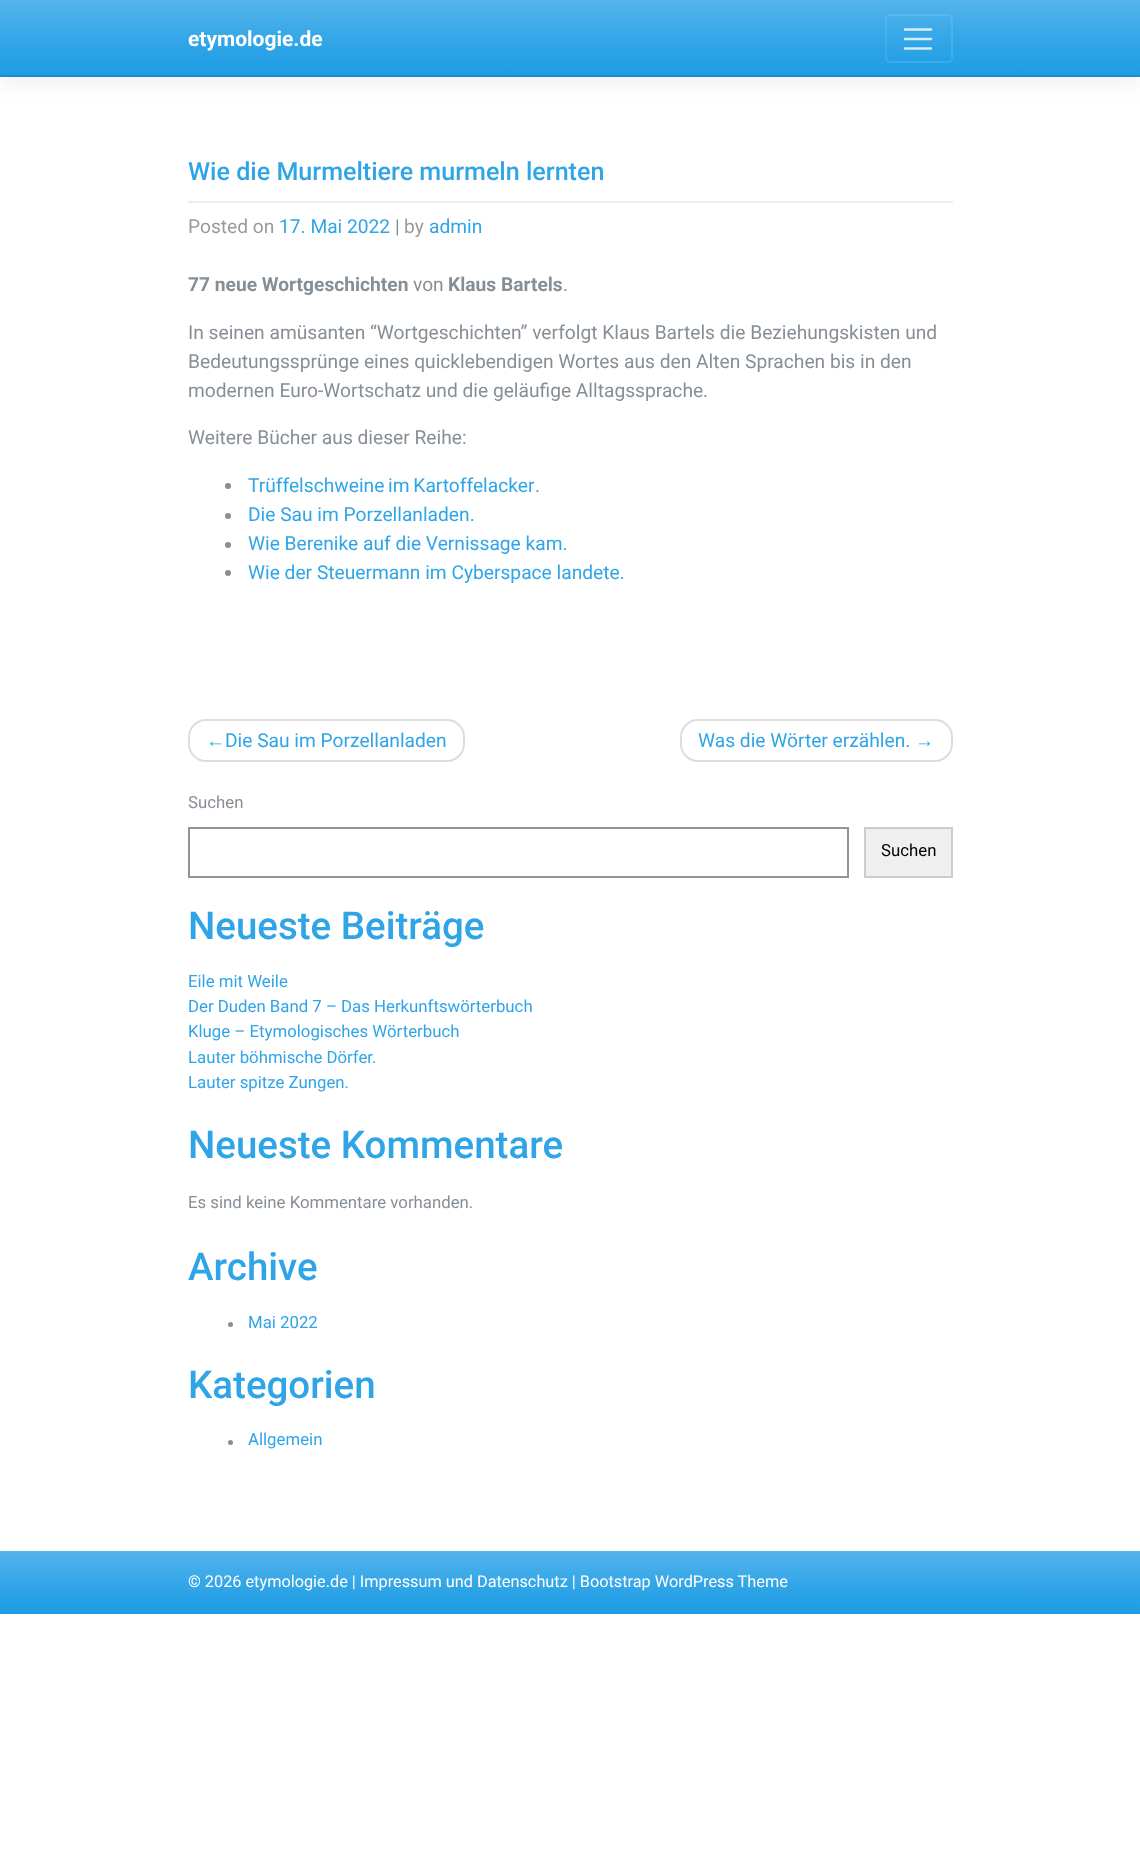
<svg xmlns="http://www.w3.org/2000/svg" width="1140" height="1867">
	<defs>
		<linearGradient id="g1" gradientUnits="userSpaceOnUse" x1="570" y1="0" x2="570" y2="77"><stop offset="0" stop-color="#54B4EB" /><stop offset="0.6" stop-color="#2FA4E7" /><stop offset="1" stop-color="#1D9CE5" /></linearGradient>
		<linearGradient id="g2" gradientUnits="userSpaceOnUse" x1="570" y1="1551" x2="570" y2="1614"><stop offset="0" stop-color="#54B4EB" /><stop offset="0.6" stop-color="#2FA4E7" /><stop offset="1" stop-color="#1D9CE5" /></linearGradient>
	</defs>
	<rect width="100%" height="100%" fill="#FFFFFF" />
	<rect x="0" y="9" width="1140" height="77" fill="#000000" fill-opacity="0.05" filter="blur(9.5px)" />
	<rect x="0" y="0" width="1140" height="75" fill="url(#g1)" />
	<rect x="0" y="75" width="1140" height="2" fill="#1B8CCE" />
	<text x="188" y="46" font-family="Roboto" font-size="21" font-weight="700" fill="#FFFFFF">etymologie.de</text>
	<rect x="886" y="15" width="66" height="47" rx="4" fill="none" stroke="#FFFFFF" stroke-opacity="0.1" stroke-width="2" />
	<path d="M905 29.5H931M905 39H931M905 48.5H931" fill="none" stroke="#FFFFFF" stroke-opacity="0.8" stroke-width="2.4" stroke-linecap="round" />
	<rect x="188" y="201" width="765" height="2" fill="#EAECEF" />
	<text x="188" y="180" font-family="Roboto" font-size="25.1" font-weight="500" fill="#2FA4E7">Wie die Murmeltiere murmeln lernten</text>
	<text x="188" y="233" font-family="Roboto" font-size="19.2" fill="#9A9A9A">Posted on</text>
	<text x="279" y="233" font-family="Roboto" font-size="19.2" fill="#2FA4E7">17. Mai 2022</text>
	<text x="395" y="233" font-family="Roboto" font-size="19.2" fill="#868E96">|</text>
	<text x="404" y="233" font-family="Roboto" font-size="19.2" fill="#9A9A9A">by</text>
	<text x="429" y="233" font-family="Roboto" font-size="19.2" fill="#2FA4E7">admin</text>
	<text x="188" y="291" font-family="Roboto" font-size="19.2" font-weight="700" fill="#868E96">77 neue Wortgeschichten</text>
	<text x="413" y="291" font-family="Roboto" font-size="19.2" fill="#868E96">von</text>
	<text x="448" y="291" font-family="Roboto" font-size="19.2" font-weight="700" fill="#868E96">Klaus Bartels</text>
	<g font-family="Roboto" font-size="19.2" fill="#868E96">
		<text x="563" y="291">.</text>
		<text x="188" y="339">In seinen amüsanten “Wortgeschichten” verfolgt Klaus Bartels die Beziehungskisten und</text>
		<text x="188" y="368">Bedeutungssprünge eines quicklebendigen Wortes aus den Alten Sprachen bis in den</text>
		<text x="188" y="397">modernen Euro-Wortschatz und die geläufige Alltagssprache.</text>
		<text x="188" y="444">Weitere Bücher aus dieser Reihe:</text>
	</g>
	<circle cx="228" cy="486" r="3" fill="#868E96" />
	<text x="248" y="492" word-spacing="-1" font-family="Roboto" font-size="19.2" fill="#2FA4E7">Trüffelschweine im Kartoffelacker</text>
	<text x="535" y="492" font-family="Roboto" font-size="19.2" fill="#868E96">.</text>
	<circle cx="228" cy="516" r="3" fill="#868E96" />
	<text x="248" y="521" font-family="Roboto" font-size="19.2" fill="#2FA4E7">Die Sau im Porzellanladen.</text>
	<circle cx="228" cy="545" r="3" fill="#868E96" />
	<text x="248" y="550" font-family="Roboto" font-size="19.2" fill="#2FA4E7">Wie Berenike auf die Vernissage kam.</text>
	<circle cx="228" cy="573" r="3" fill="#868E96" />
	<text x="248" y="579" font-family="Roboto" font-size="19.2" fill="#2FA4E7">Wie der Steuermann im Cyberspace landete.</text>
	<rect x="189" y="720" width="275" height="41" rx="17" fill="none" stroke="#DDDDDD" stroke-width="2" />
	<text x="206" y="747" font-family="Liberation Sans" font-size="19.2" fill="#2FA4E7">←</text>
	<text x="225" y="747" font-family="Roboto" font-size="19.2" fill="#2FA4E7">Die Sau im Porzellanladen</text>
	<rect x="681" y="720" width="271" height="41" rx="17" fill="none" stroke="#DDDDDD" stroke-width="2" />
	<text x="698" y="747" font-family="Roboto" font-size="19.2" fill="#2FA4E7">Was die Wörter erzählen.</text>
	<text x="915" y="747" font-family="Liberation Sans" font-size="19.2" fill="#2FA4E7">→</text>
	<text x="188" y="808" font-family="Roboto" font-size="16.8" fill="#868E96">Suchen</text>
	<rect x="189" y="828" width="659" height="49" fill="none" stroke="#949494" stroke-width="2" />
	<rect x="865" y="828" width="87" height="49" fill="#EFEFEF" stroke="#CCCCCC" stroke-width="2" />
	<text x="881" y="856" font-family="Roboto" font-size="16.8" fill="#000000">Suchen</text>
	<text x="188" y="939" font-family="Roboto" font-size="38.5" font-weight="500" fill="#2FA4E7">Neueste Beiträge</text>
	<g font-family="Roboto" font-size="16.8" fill="#2FA4E7">
		<text x="188" y="987">Eile mit Weile</text>
		<text x="188" y="1012">Der Duden Band 7 – Das Herkunftswörterbuch</text>
		<text x="188" y="1037">Kluge – Etymologisches Wörterbuch</text>
		<text x="188" y="1063">Lauter böhmische Dörfer.</text>
		<text x="188" y="1088">Lauter spitze Zungen.</text>
	</g>
	<text x="188" y="1158" font-family="Roboto" font-size="38.5" font-weight="500" fill="#2FA4E7">Neueste Kommentare</text>
	<text x="188" y="1208" font-family="Roboto" font-size="16.8" fill="#868E96">Es sind keine Kommentare vorhanden.</text>
	<text x="188" y="1280" font-family="Roboto" font-size="38.5" font-weight="500" fill="#2FA4E7">Archive</text>
	<circle cx="230.5" cy="1324.5" r="2.5" fill="#868E96" />
	<text x="248" y="1328" font-family="Roboto" font-size="16.8" fill="#2FA4E7">Mai 2022</text>
	<text x="188" y="1398" font-family="Roboto" font-size="38.5" font-weight="500" fill="#2FA4E7">Kategorien</text>
	<circle cx="230.5" cy="1442.5" r="2.5" fill="#868E96" />
	<text x="248" y="1445" font-family="Roboto" font-size="16.8" fill="#2FA4E7">Allgemein</text>
	<rect x="0" y="1551" width="1140" height="63" fill="url(#g2)" />
	<text x="188" y="1587" font-family="Roboto" font-size="16.3" fill="#FFFFFF">© 2026 etymologie.de | Impressum und Datenschutz | Bootstrap WordPress Theme</text>
</svg>
